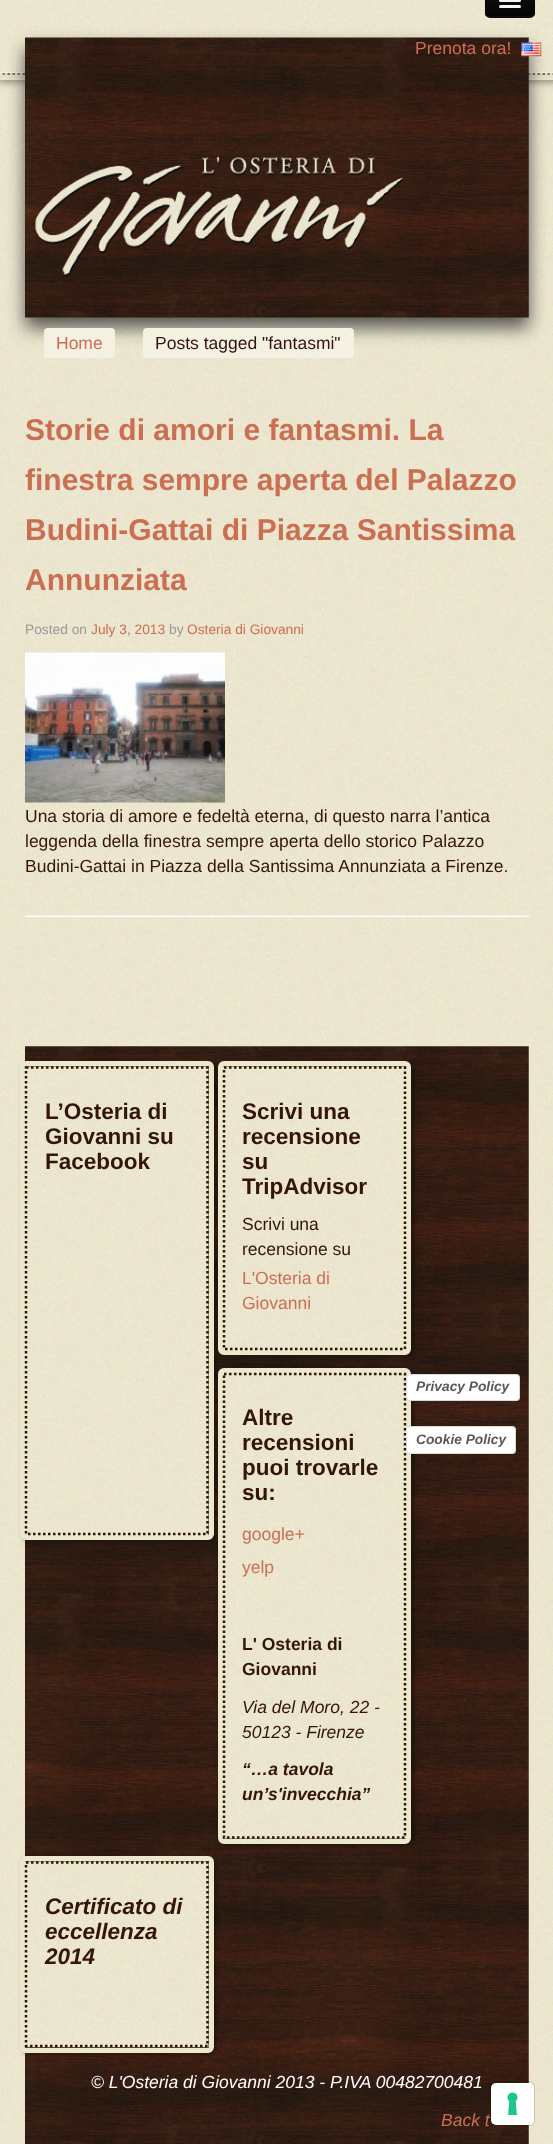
<svg xmlns="http://www.w3.org/2000/svg" width="553" height="2144">
	<defs>
		<clipPath id="clip1"><rect x="485" y="-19" width="50" height="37" rx="5" /></clipPath>
		<linearGradient id="g1" gradientUnits="userSpaceOnUse" x1="510" y1="-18" x2="510" y2="16"><stop offset="0" stop-color="#151515" /><stop offset="1" stop-color="#040404" /></linearGradient>
	</defs>
	<rect width="100%" height="100%" fill="#FFFFFF" />
	<image x="0" y="73" width="553" height="2071" href="assets/img1.png" />
	<rect x="-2" y="-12" width="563" height="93" fill="#0A0A00" fill-opacity="0.5" filter="blur(4px)" />
	<rect x="-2.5" y="-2.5" width="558" height="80" fill="none" stroke="#ECE8CD" stroke-width="5" />
	<path d="M0 74H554" fill="none" stroke="#ECE8CD" stroke-width="2.5" stroke-dasharray="2.5 2.5" />
	<rect x="0" y="-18" width="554" height="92" fill="#000000" fill-opacity="0.1" filter="blur(6px)" />
	<rect x="0" y="72" width="553" height="1" fill="#FAFAFA" />
	<image x="0" y="0" width="553" height="73" href="assets/img4.png" />
	<rect x="25" y="48" width="504" height="280" fill="#323232" fill-opacity="0.8" filter="blur(9px)" />
	<image x="25" y="37" width="504" height="281" href="assets/img2.png" />
	<image x="35" y="156" width="368" height="121" href="assets/img3.png" />
	<path d="M485 12C485 20 490 19 497 19H523C530 19 535 20 535 12C535 15 533 18 530 18H490C487 18 485 15 485 12Z" fill="#FFFFFF" fill-opacity="0.07" />
	<rect x="485" y="-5" width="50" height="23" rx="5" fill="#0E0E0E" />
	<g clip-path="url(#clip1)">
		<rect x="485" y="0" width="50" height="16" fill="url(#g1)" />
	</g>
	<path d="M533 15.5C532.5 16.5 531 17 530 17H490C489 17 487.5 16.5 487 15.5" fill="none" stroke="#000000" stroke-opacity="0.25" stroke-width="1.2" />
	<path d="M487 15.5C484.5 13 485.5 2.5 485.5-.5V-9.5C485.5-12.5 485-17 489-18H531C535-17 534.5-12.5 534.5-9.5V-.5C534.5 2.5 535.5 13 533 15.5" fill="none" stroke="#000000" stroke-opacity="0.1" stroke-width="1.2" />
	<path d="M499 1C498 3.5 503 3 503.5 3H516.5C517 3 522 3.5 521 1C520 1.5 500 1.5 499 1Z" fill="#080808" />
	<rect x="499" y="-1" width="22" height="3" rx="1.5" fill="#F5F5F5" />
	<rect x="499" y="5" width="22" height="3" rx="1.5" fill="#F5F5F5" />
	<text x="415" y="54" font-family="Liberation Sans" font-size="17.5" fill="#CB6F53">Prenota ora!</text>
	<image x="521" y="42" width="21" height="15" href="assets/img5.png" />
	<rect x="44" y="328" width="71" height="30" rx="4" fill="#F4F1E3" />
	<text x="56" y="349" font-family="Liberation Sans" font-size="17.5" fill="#CB6F53">Home</text>
	<rect x="143" y="328" width="211" height="30" rx="4" fill="#F4F1E3" />
	<text x="155" y="349" font-family="Liberation Sans" font-size="17.5" fill="#331609">Posts tagged "fantasmi"</text>
	<g font-family="Liberation Sans" font-size="30" font-weight="700" fill="#CB6F53">
		<text x="25" y="440">Storie di amori e fantasmi. La</text>
		<text x="25" y="490">finestra sempre aperta del Palazzo</text>
		<text x="25" y="540">Budini-Gattai di Piazza Santissima</text>
		<text x="25" y="590">Annunziata</text>
	</g>
	<text x="25" y="634" font-family="Liberation Sans" font-size="13.75" fill="#999999">Posted on</text>
	<text x="91" y="634" font-family="Liberation Sans" font-size="13.75" fill="#CB6F53">July 3, 2013</text>
	<text x="169" y="634" font-family="Liberation Sans" font-size="13.75" fill="#999999">by</text>
	<text x="187" y="634" font-family="Liberation Sans" font-size="13.75" fill="#CB6F53">Osteria di Giovanni</text>
	<image x="25" y="652" width="200" height="151" href="assets/img6.png" />
	<g font-family="Liberation Sans" font-size="17.5" fill="#331609">
		<text x="25" y="822">Una storia di amore e fedeltà eterna, di questo narra l’antica</text>
		<text x="25" y="847">leggenda della finestra sempre aperta dello storico Palazzo</text>
		<text x="25" y="872">Budini-Gattai in Piazza della Santissima Annunziata a Firenze.</text>
	</g>
	<rect x="25" y="915" width="504" height="1" fill="#EEEEEE" />
	<rect x="25" y="916" width="504" height="1" fill="#FFFFFF" />
	<image x="25" y="1046" width="504" height="1098" href="assets/img7.png" />
	<rect x="23" y="1063" width="193" height="478" rx="6" fill="#0A0A00" fill-opacity="0.5" filter="blur(2.5px)" />
	<rect x="22.5" y="1063.5" width="189" height="474" rx="3.5" fill="none" stroke="#ECE8CD" stroke-width="5" />
	<image x="25" y="1066" width="184" height="469" href="assets/img8.png" />
	<path d="M26 1067.5H207.5V1534H26Z" fill="none" stroke="#2C1407" stroke-width="2.5" stroke-dasharray="2.5 2.5" />
	<g font-family="Liberation Sans" font-size="22.5" font-weight="700" fill="#331609">
		<text x="45" y="1119">L’Osteria di</text>
		<text x="45" y="1144">Giovanni su</text>
		<text x="45" y="1169">Facebook</text>
	</g>
	<rect x="220" y="1063" width="194" height="293" rx="6" fill="#0A0A00" fill-opacity="0.5" filter="blur(2.5px)" />
	<rect x="220.5" y="1063.5" width="188" height="289" rx="3.5" fill="none" stroke="#ECE8CD" stroke-width="5" />
	<image x="223" y="1066" width="183" height="284" href="assets/img9.png" />
	<path d="M224 1067.5H405V1349H224Z" fill="none" stroke="#2C1407" stroke-width="2.5" stroke-dasharray="2.5 2.5" />
	<g font-family="Liberation Sans" font-size="22.5" font-weight="700" fill="#331609">
		<text x="242" y="1119">Scrivi una</text>
		<text x="242" y="1144">recensione</text>
		<text x="242" y="1169">su</text>
		<text x="242" y="1194">TripAdvisor</text>
	</g>
	<g font-family="Liberation Sans" font-size="17.5" fill="#331609">
		<text x="242" y="1230">Scrivi una</text>
		<text x="242" y="1255">recensione su</text>
	</g>
	<g font-family="Liberation Sans" font-size="17.5" fill="#CB6F53">
		<text x="242" y="1284">L'Osteria di</text>
		<text x="242" y="1309">Giovanni</text>
	</g>
	<rect x="220" y="1369" width="194" height="476" rx="6" fill="#0A0A00" fill-opacity="0.5" filter="blur(2.5px)" />
	<rect x="220.5" y="1370.5" width="188" height="471" rx="3.5" fill="none" stroke="#ECE8CD" stroke-width="5" />
	<image x="223" y="1373" width="183" height="466" href="assets/img10.png" />
	<path d="M224 1374H405V1837.5H224Z" fill="none" stroke="#2C1407" stroke-width="2.5" stroke-dasharray="2.5 2.5" />
	<rect x="406" y="1374" width="114" height="27" rx="4" fill="#FFFFFF" />
	<rect x="406.5" y="1374.5" width="113" height="26" rx="3.5" fill="none" stroke="#000000" stroke-opacity="0.15" />
	<text x="416" y="1391" font-family="Liberation Sans" font-size="13.75" font-weight="700" font-style="italic" fill="#595959">Privacy Policy</text>
	<rect x="408" y="1429" width="107" height="25" rx="2.5" fill="#000000" fill-opacity="0.15" filter="blur(0.5px)" />
	<rect x="406" y="1426" width="110" height="28" rx="4" fill="#FFFFFF" />
	<rect x="406.5" y="1426.5" width="109" height="27" rx="3.5" fill="none" stroke="#000000" stroke-opacity="0.15" />
	<text x="416" y="1444" font-family="Liberation Sans" font-size="13.75" font-weight="700" font-style="italic" fill="#595959">Cookie Policy</text>
	<text x="441" y="2126" font-family="Liberation Sans" font-size="17.5" font-style="italic" fill="#CB6F53">Back t</text>
	<text x="91" y="2088" font-family="Liberation Sans" font-size="17.5" font-style="italic" fill="#FFFFFF">© L'Osteria di Giovanni 2013 - P.IVA 00482700481</text>
	<g font-family="Liberation Sans" font-size="22.5" font-weight="700" fill="#331609">
		<text x="242" y="1425">Altre</text>
		<text x="242" y="1450">recensioni</text>
		<text x="242" y="1475">puoi trovarle</text>
		<text x="242" y="1500">su:</text>
	</g>
	<g font-family="Liberation Sans" font-size="17.5" fill="#CB6F53">
		<text x="242" y="1540">google+</text>
		<text x="242" y="1573">yelp</text>
	</g>
	<g font-family="Liberation Sans" font-size="17.5" font-weight="700" fill="#331609">
		<text x="242" y="1650">L' Osteria di</text>
		<text x="242" y="1675">Giovanni</text>
	</g>
	<g font-family="Liberation Sans" font-size="17.5" font-style="italic" fill="#331609">
		<text x="242" y="1713">Via del Moro, 22 -</text>
		<text x="242" y="1738">50123 - Firenze</text>
	</g>
	<g font-family="Liberation Sans" font-size="17.5" font-weight="700" font-style="italic" fill="#331609">
		<text x="242" y="1775">“…a tavola</text>
		<text x="242" y="1800">un’s'invecchia”</text>
	</g>
	<rect x="23" y="1858" width="193" height="196" rx="6" fill="#0A0A00" fill-opacity="0.5" filter="blur(2.5px)" />
	<rect x="22.5" y="1858.5" width="189" height="192" rx="3.5" fill="none" stroke="#ECE8CD" stroke-width="5" />
	<image x="25" y="1861" width="184" height="187" href="assets/img11.png" />
	<path d="M26 1862.5H207.5V2046H26Z" fill="none" stroke="#2C1407" stroke-width="2.5" stroke-dasharray="2.5 2.5" />
	<g font-family="Liberation Sans" font-size="22.5" font-weight="700" font-style="italic" fill="#331609">
		<text x="45" y="1914">Certificato di</text>
		<text x="45" y="1939">eccellenza</text>
		<text x="45" y="1964">2014</text>
	</g>
	<rect x="490.5" y="2081.5" width="44" height="44" rx="5.5" fill="none" stroke="#000000" stroke-opacity="0.15" />
	<rect x="491" y="2083" width="43" height="42" rx="5" fill="#FFFFFF" />
	<image x="507" y="2092" width="11" height="23" href="assets/img12.png" />
</svg>
